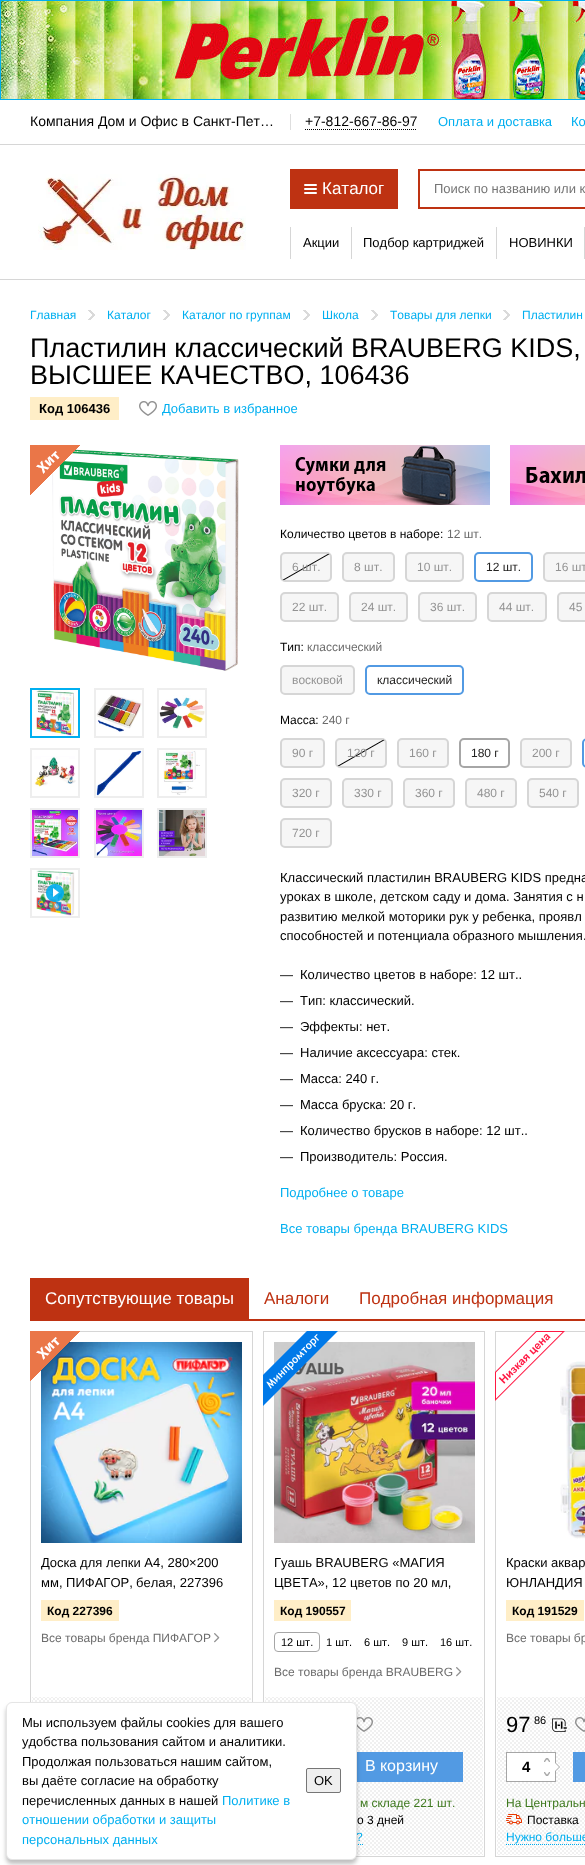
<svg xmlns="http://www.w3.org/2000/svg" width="585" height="1865">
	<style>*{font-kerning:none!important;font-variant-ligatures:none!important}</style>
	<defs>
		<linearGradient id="g1" gradientUnits="userSpaceOnUse" x1="294" y1="546" x2="318" y2="588"><stop offset="0.48" stop-color="#000000" stop-opacity="0" /><stop offset="0.5" stop-color="#000000" /><stop offset="0.52" stop-color="#000000" stop-opacity="0" /></linearGradient>
		<linearGradient id="g2" gradientUnits="userSpaceOnUse" x1="349" y1="732" x2="373" y2="774"><stop offset="0.48" stop-color="#000000" stop-opacity="0" /><stop offset="0.5" stop-color="#000000" /><stop offset="0.52" stop-color="#000000" stop-opacity="0" /></linearGradient>
	</defs>
	<rect width="100%" height="100%" fill="#FFFFFF" />
	<image x="1" y="1" width="584" height="98" href="assets/img1.png" />
	<rect x="0.5" y="0.5" width="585" height="99" fill="none" stroke="#00AFF0" />
	<rect x="0" y="144" width="585" height="1" fill="#D6D6D6" />
	<text x="30" y="126" font-family="Liberation Sans" font-size="14" fill="#000000">Компания Дом и Офис в Санкт-Пет…</text>
	<rect x="290" y="114" width="1" height="16" fill="#DEDEDE" />
	<text x="305" y="126" font-family="Liberation Sans" font-size="14" fill="#000000">+7-812-667-86-97</text>
	<path d="M305 129.5H417" fill="none" stroke="#000000" stroke-dasharray="1 1" />
	<g font-family="Liberation Sans" font-size="13" fill="#00AFF0">
		<text x="438" y="126">Оплата и доставка</text>
		<text x="571" y="126">Ко</text>
	</g>
	<rect x="0" y="279" width="585" height="1" fill="#D6D6D6" />
	<image x="38" y="174" width="208" height="76" href="assets/img2.png" />
	<rect x="290" y="169" width="108" height="40" fill="#BE3212" />
	<rect x="304" y="188" width="13" height="2" rx="1" fill="#FFFFFF" />
	<rect x="304" y="184" width="13" height="2" rx="1" fill="#FFFFFF" />
	<rect x="304" y="192" width="13" height="2" rx="1" fill="#FFFFFF" />
	<text x="322" y="194" font-family="Liberation Sans" font-size="17" fill="#FFFFFF">Каталог</text>
	<rect x="419" y="170" width="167" height="38" fill="none" stroke="#BE3212" stroke-width="2" />
	<text x="434" y="193" font-family="Liberation Sans" font-size="13" fill="#757575">Поиск по названию или к</text>
	<rect x="351" y="227" width="1" height="32" fill="#D6D6D6" />
	<rect x="290" y="227" width="1" height="32" fill="#D6D6D6" />
	<text x="303" y="247" font-family="Liberation Sans" font-size="13" fill="#000000">Акции</text>
	<rect x="496" y="227" width="1" height="32" fill="#D6D6D6" />
	<text x="363" y="247" font-family="Liberation Sans" font-size="13" fill="#000000">Подбор картриджей</text>
	<rect x="584" y="227" width="1" height="32" fill="#D6D6D6" />
	<text x="509" y="247" font-family="Liberation Sans" font-size="13" fill="#000000">НОВИНКИ</text>
	<text x="30" y="319" font-family="Liberation Sans" font-size="12" fill="#00AFF0">Главная</text>
	<image x="88" y="310" width="7" height="10" href="assets/img3.png" />
	<text x="107" y="319" font-family="Liberation Sans" font-size="12" fill="#00AFF0">Каталог</text>
	<image x="163" y="310" width="7" height="10" href="assets/img3.png" />
	<text x="182" y="319" font-family="Liberation Sans" font-size="12" fill="#00AFF0">Каталог по группам</text>
	<image x="303" y="310" width="7" height="10" href="assets/img3.png" />
	<text x="322" y="319" font-family="Liberation Sans" font-size="12" fill="#00AFF0">Школа</text>
	<image x="371" y="310" width="7" height="10" href="assets/img3.png" />
	<text x="390" y="319" font-family="Liberation Sans" font-size="12" fill="#00AFF0">Товары для лепки</text>
	<image x="503" y="310" width="7" height="10" href="assets/img3.png" />
	<text x="522" y="319" font-family="Liberation Sans" font-size="12" fill="#00AFF0">Пластилин</text>
	<g font-family="Liberation Sans" font-size="27" fill="#000000">
		<text x="30" y="357">Пластилин классический BRAUBERG KIDS,</text>
		<text x="30" y="384">ВЫСШЕЕ КАЧЕСТВО, 106436</text>
	</g>
	<rect x="30" y="397" width="89" height="23" fill="#FFEEC7" />
	<text x="39" y="413" font-family="Liberation Sans" font-size="13" font-weight="700" fill="#000000">Код 106436</text>
	<image x="139" y="401" width="18" height="15" href="assets/img4.png" />
	<text x="162" y="413" font-family="Liberation Sans" font-size="13" fill="#00AFF0">Добавить в избранное</text>
	<image x="52" y="449" width="187" height="222" href="assets/img6.png" />
	<image x="30" y="445" width="50" height="50" href="assets/img5.png" />
	<rect x="31" y="689" width="48" height="48" fill="none" stroke="#00AFF0" stroke-width="2" />
	<image x="36" y="690" width="39" height="46" href="assets/img7.png" />
	<rect x="95" y="689" width="48" height="48" fill="none" stroke="#EEEEEE" stroke-width="2" />
	<image x="96" y="694" width="46" height="38" href="assets/img8.png" />
	<rect x="158" y="689" width="48" height="48" fill="none" stroke="#EEEEEE" stroke-width="2" />
	<image x="159" y="695" width="46" height="36" href="assets/img9.png" />
	<rect x="31" y="749" width="48" height="48" fill="none" stroke="#EEEEEE" stroke-width="2" />
	<image x="32" y="756" width="46" height="31" href="assets/img10.png" />
	<rect x="95" y="749" width="48" height="48" fill="none" stroke="#EEEEEE" stroke-width="2" />
	<image x="96" y="750" width="46" height="46" href="assets/img11.png" />
	<rect x="158" y="749" width="48" height="48" fill="none" stroke="#EEEEEE" stroke-width="2" />
	<image x="163" y="750" width="37" height="45" href="assets/img12.png" />
	<rect x="31" y="809" width="48" height="48" fill="none" stroke="#EEEEEE" stroke-width="2" />
	<image x="32" y="810" width="46" height="46" href="assets/img13.png" />
	<rect x="95" y="809" width="48" height="48" fill="none" stroke="#EEEEEE" stroke-width="2" />
	<image x="96" y="810" width="46" height="46" href="assets/img14.png" />
	<rect x="158" y="809" width="48" height="48" fill="none" stroke="#EEEEEE" stroke-width="2" />
	<image x="159" y="810" width="46" height="46" href="assets/img15.png" />
	<rect x="31" y="869" width="48" height="48" fill="none" stroke="#EEEEEE" stroke-width="2" />
	<image x="36" y="870" width="39" height="46" href="assets/img16.png" />
	<image x="46" y="884" width="18" height="18" href="assets/img17.png" />
	<image x="280" y="445" width="210" height="60" href="assets/img18.png" />
	<image x="510" y="445" width="75" height="60" href="assets/img19.png" />
	<text x="280" y="538" font-family="Liberation Sans" font-size="12" fill="#000000">Количество цветов в наборе:</text>
	<text x="447" y="538" font-family="Liberation Sans" font-size="12" fill="#6C6C6C">12 шт.</text>
	<rect x="281" y="553" width="50" height="28" rx="4" fill="#F6F6F6" stroke="#D6D6D6" stroke-width="2" />
	<rect x="281" y="553" width="50" height="28" rx="5" fill="url(#g1)" />
	<text x="292" y="571" font-family="Liberation Sans" font-size="12" fill="#939393">6 шт.</text>
	<rect x="343" y="553" width="51" height="28" rx="4" fill="#F6F6F6" stroke="#D6D6D6" stroke-width="2" />
	<text x="354" y="571" font-family="Liberation Sans" font-size="12" fill="#939393">8 шт.</text>
	<rect x="406" y="553" width="57" height="28" rx="4" fill="#F6F6F6" stroke="#D6D6D6" stroke-width="2" />
	<text x="417" y="571" font-family="Liberation Sans" font-size="12" fill="#939393">10 шт.</text>
	<rect x="475" y="553" width="57" height="28" rx="4" fill="none" stroke="#529AE3" stroke-width="2" />
	<text x="486" y="571" font-family="Liberation Sans" font-size="12" fill="#242322">12 шт.</text>
	<rect x="544" y="553" width="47" height="28" rx="4" fill="#F6F6F6" stroke="#D6D6D6" stroke-width="2" />
	<text x="555" y="571" font-family="Liberation Sans" font-size="12" fill="#939393">16 шт</text>
	<rect x="281" y="593" width="57" height="28" rx="4" fill="#F6F6F6" stroke="#D6D6D6" stroke-width="2" />
	<text x="292" y="611" font-family="Liberation Sans" font-size="12" fill="#939393">22 шт.</text>
	<rect x="350" y="593" width="57" height="28" rx="4" fill="#F6F6F6" stroke="#D6D6D6" stroke-width="2" />
	<text x="361" y="611" font-family="Liberation Sans" font-size="12" fill="#939393">24 шт.</text>
	<rect x="419" y="593" width="57" height="28" rx="4" fill="#F6F6F6" stroke="#D6D6D6" stroke-width="2" />
	<text x="430" y="611" font-family="Liberation Sans" font-size="12" fill="#939393">36 шт.</text>
	<rect x="488" y="593" width="58" height="28" rx="4" fill="#F6F6F6" stroke="#D6D6D6" stroke-width="2" />
	<text x="499" y="611" font-family="Liberation Sans" font-size="12" fill="#939393">44 шт.</text>
	<rect x="558" y="593" width="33" height="28" rx="4" fill="#F6F6F6" stroke="#D6D6D6" stroke-width="2" />
	<text x="569" y="611" font-family="Liberation Sans" font-size="12" fill="#939393">45</text>
	<text x="280" y="651" font-family="Liberation Sans" font-size="12" fill="#000000">Тип:</text>
	<text x="307" y="651" font-family="Liberation Sans" font-size="12" fill="#6C6C6C">классический</text>
	<rect x="281" y="666" width="73" height="28" rx="4" fill="#F6F6F6" stroke="#D6D6D6" stroke-width="2" />
	<text x="292" y="684" font-family="Liberation Sans" font-size="12" fill="#939393">восковой</text>
	<rect x="366" y="666" width="97" height="28" rx="4" fill="none" stroke="#529AE3" stroke-width="2" />
	<text x="377" y="684" font-family="Liberation Sans" font-size="12" fill="#242322">классический</text>
	<text x="280" y="724" font-family="Liberation Sans" font-size="12" fill="#000000">Масса:</text>
	<text x="322" y="724" font-family="Liberation Sans" font-size="12" fill="#6C6C6C">240 г</text>
	<rect x="281" y="739" width="43" height="28" rx="4" fill="#F6F6F6" stroke="#D6D6D6" stroke-width="2" />
	<text x="292" y="757" font-family="Liberation Sans" font-size="12" fill="#939393">90 г</text>
	<rect x="336" y="739" width="50" height="28" rx="4" fill="#F6F6F6" stroke="#D6D6D6" stroke-width="2" />
	<rect x="336" y="739" width="50" height="28" rx="5" fill="url(#g2)" />
	<text x="347" y="757" font-family="Liberation Sans" font-size="12" fill="#939393">120 г</text>
	<rect x="398" y="739" width="50" height="28" rx="4" fill="#F6F6F6" stroke="#D6D6D6" stroke-width="2" />
	<text x="409" y="757" font-family="Liberation Sans" font-size="12" fill="#939393">160 г</text>
	<rect x="460" y="739" width="49" height="28" rx="4" fill="none" stroke="#A6A6A6" stroke-width="2" />
	<text x="471" y="757" font-family="Liberation Sans" font-size="12" fill="#242322">180 г</text>
	<rect x="521" y="739" width="50" height="28" rx="4" fill="#F6F6F6" stroke="#D6D6D6" stroke-width="2" />
	<text x="532" y="757" font-family="Liberation Sans" font-size="12" fill="#939393">200 г</text>
	<rect x="583" y="739" width="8" height="28" rx="4" fill="none" stroke="#529AE3" stroke-width="2" />
	<rect x="281" y="779" width="50" height="28" rx="4" fill="#F6F6F6" stroke="#D6D6D6" stroke-width="2" />
	<text x="292" y="797" font-family="Liberation Sans" font-size="12" fill="#939393">320 г</text>
	<rect x="343" y="779" width="49" height="28" rx="4" fill="#F6F6F6" stroke="#D6D6D6" stroke-width="2" />
	<text x="354" y="797" font-family="Liberation Sans" font-size="12" fill="#939393">330 г</text>
	<rect x="404" y="779" width="50" height="28" rx="4" fill="#F6F6F6" stroke="#D6D6D6" stroke-width="2" />
	<text x="415" y="797" font-family="Liberation Sans" font-size="12" fill="#939393">360 г</text>
	<rect x="466" y="779" width="50" height="28" rx="4" fill="#F6F6F6" stroke="#D6D6D6" stroke-width="2" />
	<text x="477" y="797" font-family="Liberation Sans" font-size="12" fill="#939393">480 г</text>
	<rect x="528" y="779" width="50" height="28" rx="4" fill="#F6F6F6" stroke="#D6D6D6" stroke-width="2" />
	<text x="539" y="797" font-family="Liberation Sans" font-size="12" fill="#939393">540 г</text>
	<rect x="281" y="819" width="50" height="28" rx="4" fill="#F6F6F6" stroke="#D6D6D6" stroke-width="2" />
	<text x="292" y="837" font-family="Liberation Sans" font-size="12" fill="#939393">720 г</text>
	<g font-family="Liberation Sans" font-size="13" fill="#000000">
		<text x="280" y="882">Классический пластилин BRAUBERG KIDS предна</text>
		<text x="280" y="901">уроках в школе, детском саду и дома. Занятия с н</text>
		<text x="280" y="921">развитию мелкой моторики рук у ребенка, проявл</text>
		<text x="280" y="940">способностей и потенциала образного мышления.</text>
		<text x="280" y="979">—</text>
		<text x="300" y="979">Количество цветов в наборе: 12 шт..</text>
		<text x="280" y="1005">—</text>
		<text x="300" y="1005">Тип: классический.</text>
		<text x="280" y="1031">—</text>
		<text x="300" y="1031">Эффекты: нет.</text>
		<text x="280" y="1057">—</text>
		<text x="300" y="1057">Наличие аксессуара: стек.</text>
		<text x="280" y="1083">—</text>
		<text x="300" y="1083">Масса: 240 г.</text>
		<text x="280" y="1109">—</text>
		<text x="300" y="1109">Масса бруска: 20 г.</text>
		<text x="280" y="1135">—</text>
		<text x="300" y="1135">Количество брусков в наборе: 12 шт..</text>
		<text x="280" y="1161">—</text>
		<text x="300" y="1161">Производитель: Россия.</text>
	</g>
	<g font-family="Liberation Sans" font-size="13" fill="#00AFF0">
		<text x="280" y="1197">Подробнее о товаре</text>
		<text x="280" y="1233">Все товары бренда BRAUBERG KIDS</text>
	</g>
	<rect x="30" y="1319" width="555" height="2" fill="#BE3212" />
	<rect x="30" y="1278" width="219" height="41" fill="#BE3212" />
	<text x="45" y="1304" font-family="Liberation Sans" font-size="17" fill="#FFFFFF">Сопутствующие товары</text>
	<g font-family="Liberation Sans" font-size="17" fill="#BE3212">
		<text x="264" y="1304">Аналоги</text>
		<text x="359" y="1304">Подробная информация</text>
	</g>
	<rect x="30.5" y="1331.5" width="222" height="525" fill="none" stroke="#D6D6D6" />
	<image x="41" y="1342" width="201" height="201" href="assets/img21.png" />
	<image x="30" y="1331" width="50" height="50" href="assets/img20.png" />
	<g font-family="Liberation Sans" font-size="13" fill="#000000">
		<text x="41" y="1567">Доска для лепки А4, 280×200</text>
		<text x="41" y="1587">мм, ПИФАГОР,</text>
		<text x="136" y="1587">белая, 227396</text>
	</g>
	<rect x="41" y="1600" width="78" height="21" fill="#FFEEC7" />
	<text x="47" y="1615" font-family="Liberation Sans" font-size="12" font-weight="700" fill="#000000">Код 227396</text>
	<text x="41" y="1642" font-family="Liberation Sans" font-size="12" fill="#6C6C6C">Все товары бренда ПИФАГОР</text>
	<image x="214" y="1633" width="6" height="10" href="assets/img22.png" />
	<image x="32" y="1697" width="219" height="5" href="assets/img23.png" />
	<rect x="263.5" y="1331.5" width="221" height="525" fill="none" stroke="#D6D6D6" />
	<image x="274" y="1342" width="201" height="201" href="assets/img25.png" />
	<image x="263" y="1331" width="75" height="75" href="assets/img24.png" />
	<g font-family="Liberation Sans" font-size="13" fill="#000000">
		<text x="274" y="1567">Гуашь BRAUBERG «МАГИЯ</text>
		<text x="274" y="1587">ЦВЕТА», 12 цветов по 20 мл,</text>
	</g>
	<rect x="274" y="1600" width="77" height="21" fill="#FFEEC7" />
	<text x="280" y="1615" font-family="Liberation Sans" font-size="12" font-weight="700" fill="#000000">Код 190557</text>
	<rect x="274.5" y="1632.5" width="45" height="19" rx="3.5" fill="none" stroke="#A6A6A6" />
	<g font-family="Liberation Sans" font-size="11" fill="#000000">
		<text x="281" y="1646">12 шт.</text>
		<text x="326" y="1646">1 шт.</text>
		<text x="364" y="1646">6 шт.</text>
		<text x="402" y="1646">9 шт.</text>
		<text x="440" y="1646">16 шт.</text>
	</g>
	<text x="274" y="1676" font-family="Liberation Sans" font-size="12" fill="#6C6C6C">Все товары бренда BRAUBERG</text>
	<image x="456" y="1667" width="6" height="10" href="assets/img22.png" />
	<image x="265" y="1697" width="218" height="158" href="assets/img26.png" />
	<image x="357" y="1717" width="16" height="15" href="assets/img27.png" />
	<rect x="357" y="1752" width="106" height="30" fill="#529AE3" />
	<text x="365" y="1771" font-family="Liberation Sans" font-size="16" fill="#FFFFFF">В корзину</text>
	<text x="360" y="1807" font-family="Liberation Sans" font-size="12" fill="#3E791E">м складе 221 шт.</text>
	<text x="357" y="1824" font-family="Liberation Sans" font-size="12" fill="#000000">о 3 дней</text>
	<text x="356" y="1841" font-family="Liberation Sans" font-size="12" fill="#00AFF0">?</text>
	<path d="M274 1844.5H363" fill="none" stroke="#00AFF0" stroke-dasharray="1 1" />
	<rect x="495.5" y="1331.5" width="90" height="525" fill="none" stroke="#D6D6D6" />
	<image x="560" y="1361" width="25" height="178" href="assets/img29.png" />
	<image x="495" y="1331" width="70" height="70" href="assets/img28.png" />
	<g font-family="Liberation Sans" font-size="13" fill="#000000">
		<text x="506" y="1567">Краски аквар</text>
		<text x="506" y="1587">ЮНЛАНДИЯ</text>
	</g>
	<rect x="506" y="1600" width="78" height="21" fill="#FFEEC7" />
	<text x="512" y="1615" font-family="Liberation Sans" font-size="12" font-weight="700" fill="#000000">Код 191529</text>
	<text x="506" y="1642" font-family="Liberation Sans" font-size="12" fill="#6C6C6C">Все товары бр</text>
	<image x="497" y="1697" width="88" height="158" href="assets/img30.png" />
	<text x="506" y="1732" font-family="Liberation Sans" font-size="22" fill="#000000">97</text>
	<text x="534" y="1724" font-family="Liberation Sans" font-size="11" fill="#000000">86</text>
	<text x="551" y="1732" font-family="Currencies" font-size="22" fill="#000000">руб</text>
	<image x="575" y="1717" width="10" height="15" href="assets/img31.png" />
	<rect x="506.5" y="1752.5" width="49" height="29" fill="#FFFFFF" stroke="#A6A6A6" />
	<text x="522" y="1772" font-family="Liberation Sans" font-size="15" font-weight="700" fill="#000000">4</text>
	<image x="544" y="1758" width="6" height="4" href="assets/img32.png" />
	<image x="544" y="1772" width="6" height="4" href="assets/img33.png" />
	<path d="M555 1772V1762L560 1767Z" fill="#A6A6A6" />
	<path d="M555 1771V1763L559 1767Z" fill="#FFFFFF" />
	<rect x="573" y="1752" width="12" height="30" fill="#529AE3" />
	<text x="506" y="1807" font-family="Liberation Sans" font-size="12" fill="#3E791E">На Центральн</text>
	<image x="506" y="1814" width="16" height="11" href="assets/img34.png" />
	<text x="527" y="1824" font-family="Liberation Sans" font-size="12" fill="#000000">Поставка</text>
	<text x="506" y="1841" font-family="Liberation Sans" font-size="12" fill="#00AFF0">Нужно больше</text>
	<path d="M506 1844.5H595" fill="none" stroke="#00AFF0" stroke-dasharray="1 1" />
	<rect x="6" y="1706" width="351" height="158" rx="6" fill="#000000" fill-opacity="0.25" filter="blur(2px)" />
	<rect x="6.5" y="1702.5" width="350" height="157" rx="5.5" fill="#FFFFFF" stroke="#E5E5E5" />
	<g font-family="Liberation Sans" font-size="13" fill="#000000">
		<text x="22" y="1727">Мы используем файлы cookies для вашего</text>
		<text x="22" y="1746">удобства пользования сайтом и аналитики.</text>
		<text x="22" y="1766">Продолжая пользоваться нашим сайтом,</text>
		<text x="22" y="1785">вы даёте согласие на обработку</text>
		<text x="22" y="1805">перечисленных данных в нашей</text>
	</g>
	<g font-family="Liberation Sans" font-size="13" fill="#00AFF0">
		<text x="222" y="1805">Политике в</text>
		<text x="22" y="1824">отношении обработки и защиты</text>
		<text x="22" y="1844">персональных данных</text>
	</g>
	<rect x="306.5" y="1768.5" width="34" height="24" rx="1.5" fill="#EFEFEF" stroke="#767676" />
	<text x="314" y="1785" font-family="Liberation Sans" font-size="13" fill="#000000">OK</text>
</svg>
